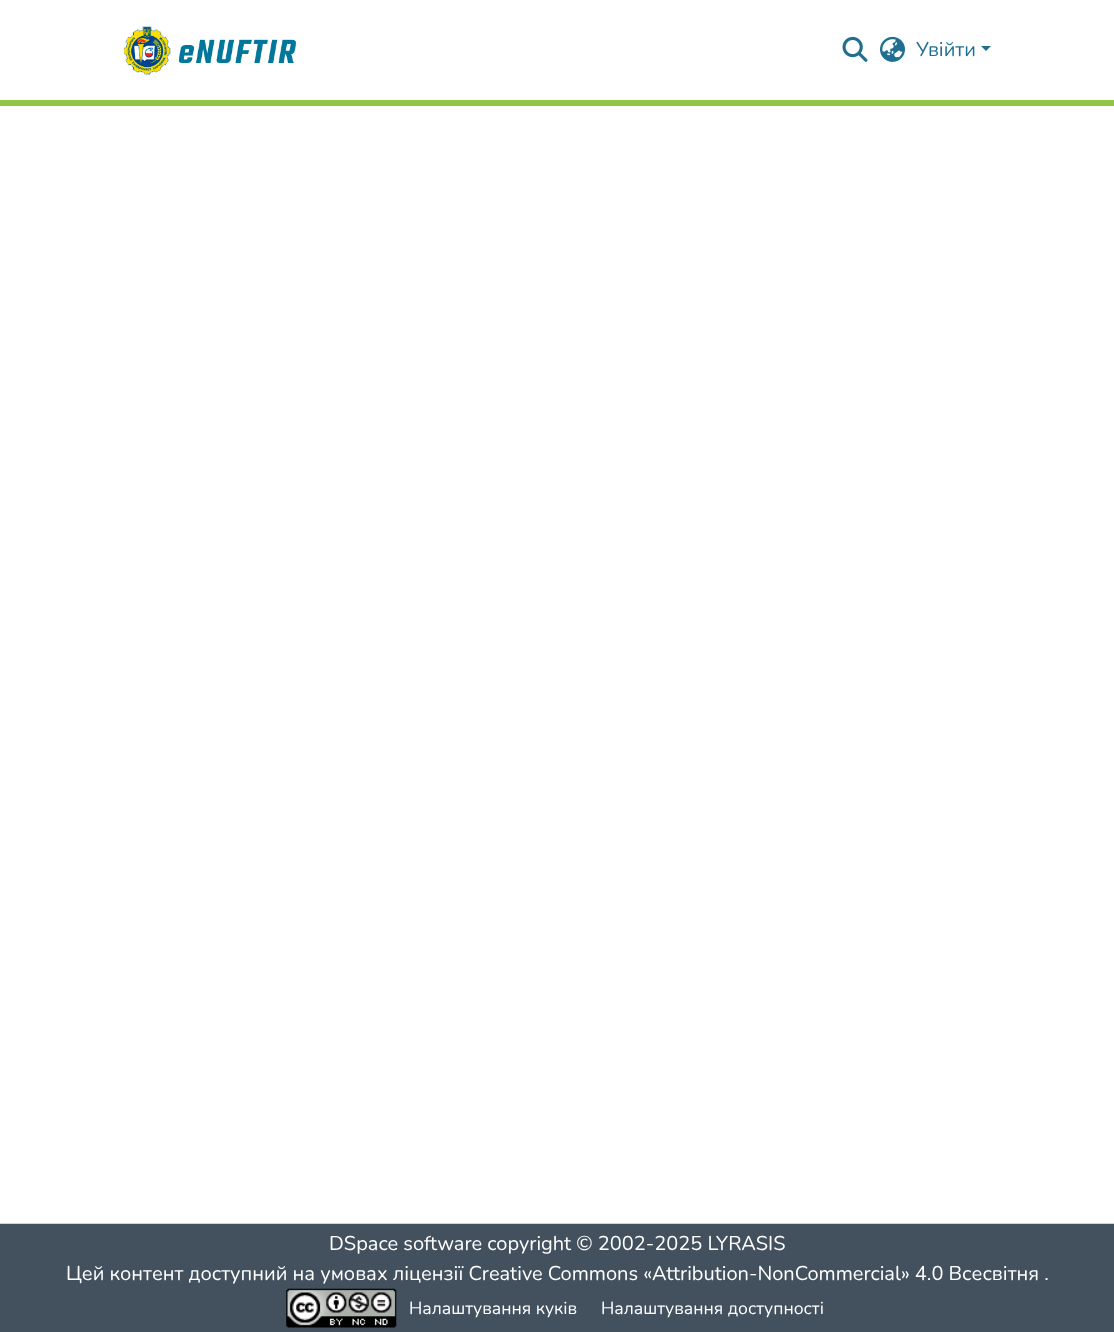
<svg xmlns="http://www.w3.org/2000/svg" width="1114" height="1332">
	<rect width="100%" height="100%" fill="#FFFFFF" />
	<rect x="0" y="100" width="1114" height="6" fill="#92C642" />
	<image x="123" y="26" width="174" height="49" href="assets/img1.png" />
	<image x="842" y="36" width="26" height="26" href="assets/img2.png" />
	<image x="880" y="36" width="25" height="26" href="assets/img3.png" />
	<text x="916" y="56" font-family="Nunito" font-size="20" fill="#1E6F90">Увійти</text>
	<path d="M981 46H991L986 51Z" fill="#1E6F90" />
	<rect x="0" y="1224" width="1114" height="108" fill="#43515F" />
	<rect x="0" y="1223" width="1114" height="1" fill="#CED4DA" />
	<g font-family="Nunito" font-size="20" fill="#FFFFFF">
		<text x="329" y="1250">DSpace software copyright © 2002-2025 LYRASIS</text>
		<text x="66" y="1280">Цей контент доступний на умовах ліцензії Creative Commons «Attribution-NonCommercial» 4.0 Всесвітня .</text>
	</g>
	<image x="286" y="1288" width="111" height="40" href="assets/img4.png" />
	<text x="409" y="1314" font-family="Nunito" font-size="17.5" fill="#FFFFFF">Налаштування куків</text>
	<rect x="589" y="1294" width="1" height="29" fill="#495057" />
	<text x="601" y="1314" font-family="Nunito" font-size="17.5" fill="#FFFFFF">Налаштування доступності</text>
</svg>
